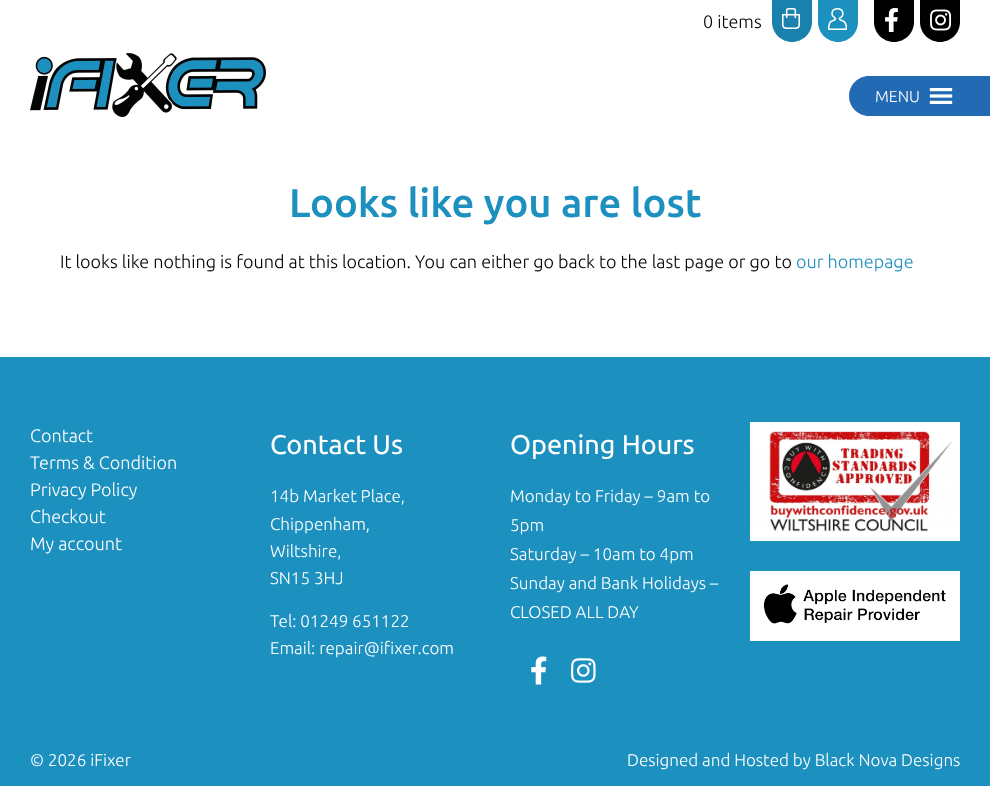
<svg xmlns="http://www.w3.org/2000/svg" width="990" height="786">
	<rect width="100%" height="100%" fill="#FFFFFF" />
	<image x="30" y="53" width="236" height="64" href="assets/img1.png" />
	<text x="703" y="28" font-family="Ubuntu" font-size="18" font-weight="300" fill="#000000">0 items</text>
	<path d="M772 0H812V22C812 33 803 42 792 42C781 42 772 33 772 22Z" fill="#1A81AC" />
	<image x="782" y="8" width="18" height="21" href="assets/img2.png" />
	<path d="M818 0H858V22C858 33 849 42 838 42C827 42 818 33 818 22Z" fill="#1C90BF" />
	<image x="828" y="8" width="19" height="22" href="assets/img3.png" />
	<path d="M874 0H914V22C914 33 905 42 894 42C883 42 874 33 874 22Z" fill="#000000" />
	<image x="885" y="8" width="13" height="24" href="assets/img4.png" />
	<path d="M920 0H960V22C960 33 951 42 940 42C929 42 920 33 920 22Z" fill="#000000" />
	<image x="930" y="9" width="22" height="22" href="assets/img5.png" />
	<path d="M869 76H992C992.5 76 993 76.5 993 77V115C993 115.5 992.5 116 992 116H869C858 116 849 107 849 96C849 85 858 76 869 76Z" fill="#236AB4" />
	<text x="875" y="102" font-family="Ubuntu" font-size="16" font-weight="300" fill="#FFFFFF">MENU</text>
	<image x="929" y="88" width="24" height="16" href="assets/img6.png" />
	<text x="289" y="217" font-family="Ubuntu" font-size="40" font-weight="500" fill="#1C90BF">Looks like you are lost</text>
	<text x="60" y="268" font-family="Ubuntu" font-size="18" font-weight="300" fill="#000000">It looks like nothing is found at this location. You can either go back to the last page or go to</text>
	<text x="796" y="268" font-family="Ubuntu" font-size="18" font-weight="300" fill="#1C90BF">our homepage</text>
	<rect x="0" y="357" width="990" height="429" fill="#1C90BF" />
	<g font-family="Ubuntu" font-size="18" font-weight="300" fill="#FFFFFF">
		<text x="30" y="442">Contact</text>
		<text x="30" y="469">Terms &amp; Condition</text>
		<text x="30" y="496">Privacy Policy</text>
		<text x="30" y="523">Checkout</text>
		<text x="30" y="550">My account</text>
	</g>
	<text x="270" y="454" font-family="Ubuntu" font-size="27" fill="#FFFFFF">Contact Us</text>
	<g font-family="Ubuntu" font-size="17" font-weight="300" fill="#FFFFFF">
		<text x="270" y="502">14b Market Place,</text>
		<text x="270" y="530">Chippenham,</text>
		<text x="270" y="557">Wiltshire,</text>
		<text x="270" y="584">SN15 3HJ</text>
		<text x="270" y="627">Tel: 01249 651122</text>
		<text x="270" y="654">Email: repair@ifixer.com</text>
	</g>
	<text x="510" y="454" font-family="Ubuntu" font-size="27" fill="#FFFFFF">Opening Hours</text>
	<g font-family="Ubuntu" font-size="17" font-weight="300" fill="#FFFFFF">
		<text x="510" y="502">Monday to Friday – 9am to</text>
		<text x="510" y="531">5pm</text>
		<text x="510" y="560">Saturday – 10am to 4pm</text>
		<text x="510" y="589">Sunday and Bank Holidays –</text>
		<text x="510" y="618">CLOSED ALL DAY</text>
	</g>
	<image x="531" y="656" width="16" height="29" href="assets/img7.png" />
	<image x="571" y="658" width="25" height="25" href="assets/img8.png" />
	<image x="750" y="422" width="210" height="119" href="assets/img9.png" />
	<image x="750" y="571" width="210" height="70" href="assets/img10.png" />
	<g font-family="Ubuntu" font-size="17" font-weight="300" fill="#FFFFFF">
		<text x="30" y="766">© 2026 iFixer</text>
		<text x="627" y="766">Designed and Hosted by Black Nova Designs</text>
	</g>
</svg>
